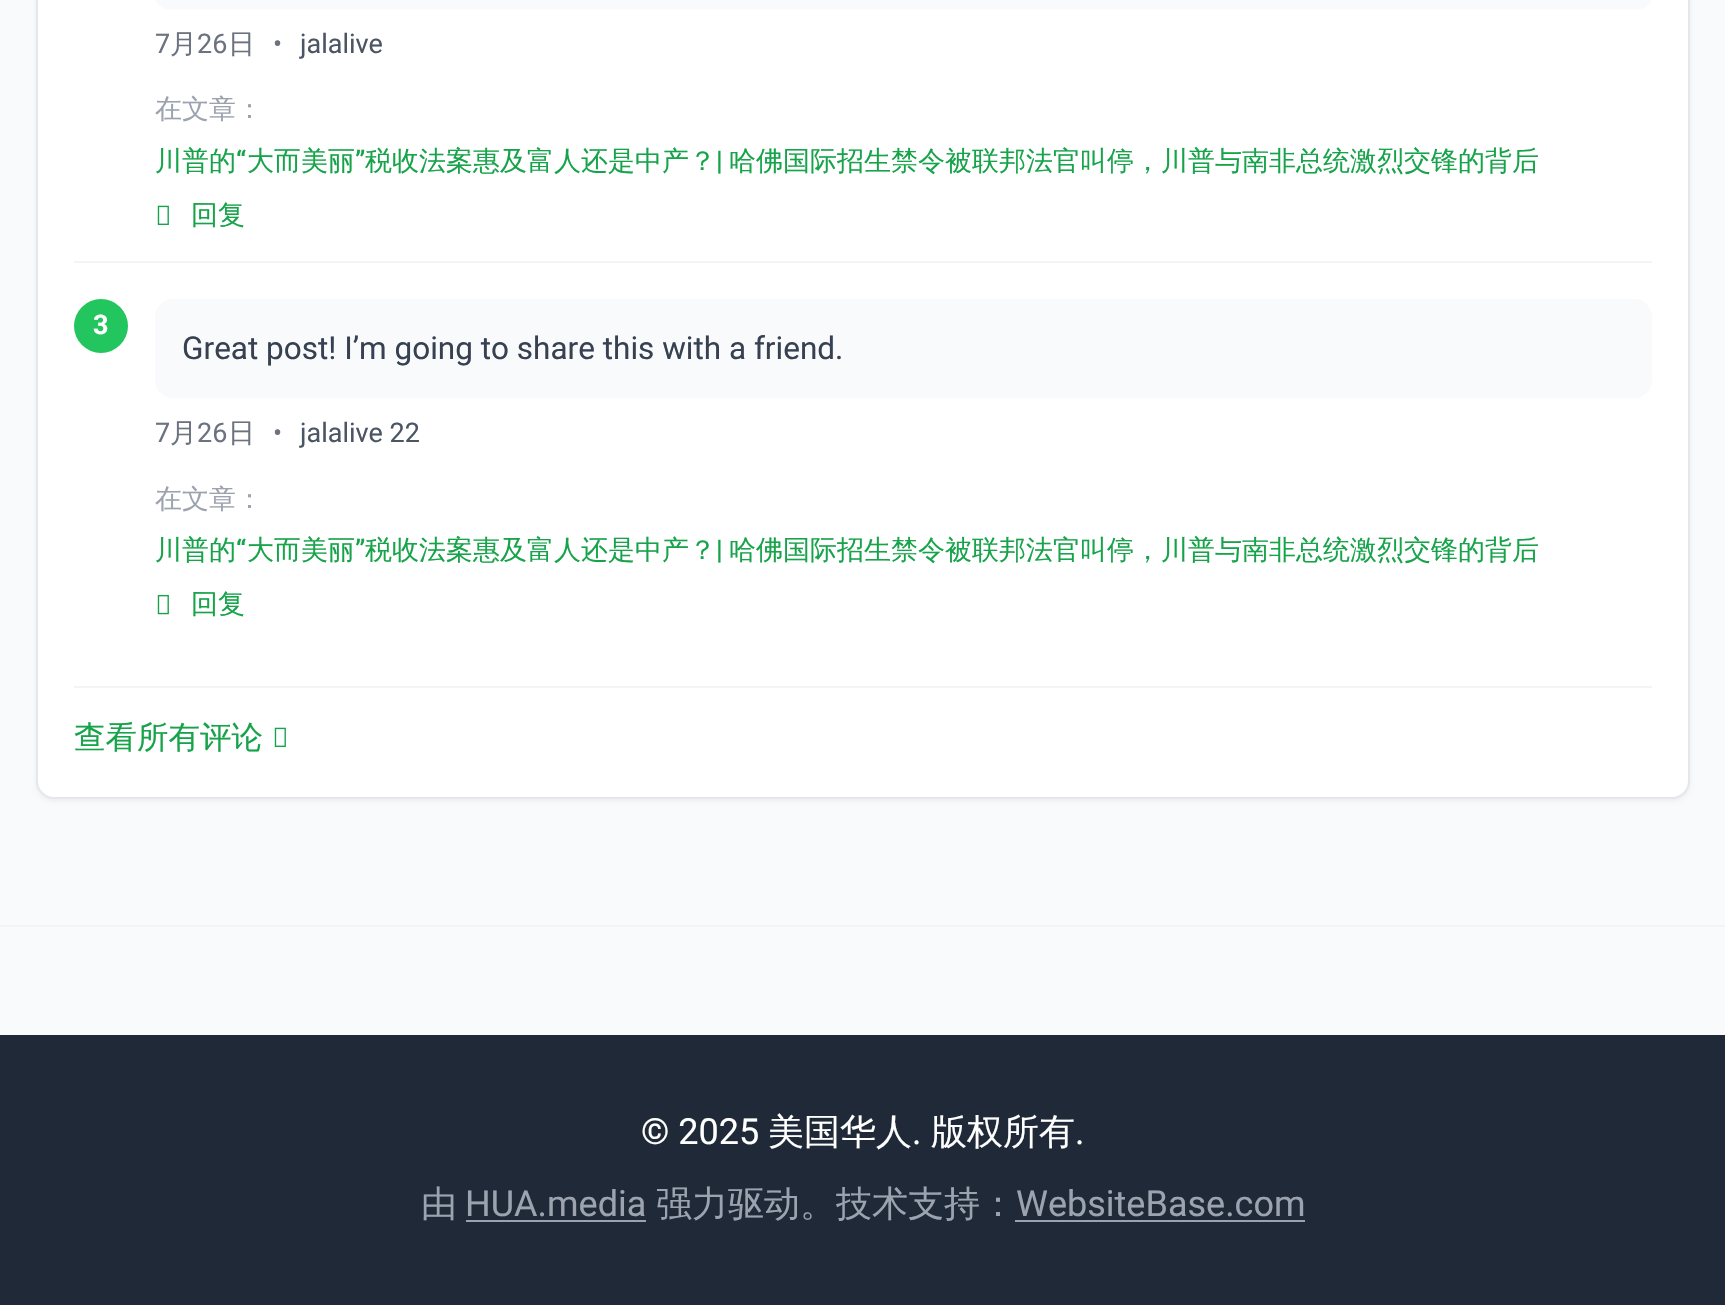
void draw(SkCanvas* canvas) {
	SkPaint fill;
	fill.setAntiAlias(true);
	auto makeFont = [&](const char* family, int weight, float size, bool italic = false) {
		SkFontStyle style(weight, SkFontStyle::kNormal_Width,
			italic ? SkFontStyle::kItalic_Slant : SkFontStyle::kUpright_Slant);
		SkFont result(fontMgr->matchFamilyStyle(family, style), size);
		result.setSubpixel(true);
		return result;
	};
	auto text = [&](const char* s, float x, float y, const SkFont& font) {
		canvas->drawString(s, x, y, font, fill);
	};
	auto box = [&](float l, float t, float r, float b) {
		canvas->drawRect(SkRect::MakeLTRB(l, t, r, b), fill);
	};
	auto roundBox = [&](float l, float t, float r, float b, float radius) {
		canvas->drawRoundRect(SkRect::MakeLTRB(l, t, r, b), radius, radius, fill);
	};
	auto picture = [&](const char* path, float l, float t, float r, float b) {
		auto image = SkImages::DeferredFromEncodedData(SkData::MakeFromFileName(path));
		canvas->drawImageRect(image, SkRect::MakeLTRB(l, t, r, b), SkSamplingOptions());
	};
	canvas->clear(0xFFF9FAFB);
	fill.setColor(0x0D000000);
	fill.setMaskFilter(SkMaskFilter::MakeBlur(kNormal_SkBlurStyle, 2));
	canvas->drawRoundRect(SkRect::MakeLTRB(36, -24, 1690, 801), 18, 18, fill);
	fill.setMaskFilter(nullptr);
	fill.setColor(0xFFFFFFFF);
	canvas->drawRoundRect(SkRect::MakeLTRB(37, -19, 1689, 798), 17, 17, fill);
	fill.setStyle(SkPaint::kStroke_Style);
	fill.setStrokeWidth(2);
	fill.setColor(0xFFE5E7EB);
	canvas->drawRoundRect(SkRect::MakeLTRB(37, -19, 1689, 798), 17, 17, fill);
	fill.setStyle(SkPaint::kFill_Style);
	fill.setColor(0xFFF3F4F6);
	box(74, 261, 1652, 263);
	fill.setColor(0xFFF9FAFB);
	roundBox(155, -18, 1652, 9, 18);
	picture("image0.png", 157, 205, 169, 225);
	fill.setColor(0xFF22C55E);
	canvas->drawCircle(101, 326, 27, fill);
	fill.setColor(0xFFF9FAFB);
	roundBox(155, 299, 1652, 398, 18);
	picture("image1.png", 157, 594, 169, 615);
	fill.setColor(0xFFF3F4F6);
	box(74, 686, 1652, 688);
	picture("image0.png", 274, 727, 286, 747);
	box(0, 925, 1725, 927);
	fill.setColor(0xFF1F2937);
	box(0, 1035, 1725, 1305);
	fill.setColor(0xFF9CA3AF);
	box(466, 1220, 646, 1222);
	box(1015, 1220, 1305, 1222);
	auto font1 = makeFont("Roboto", 400, 27);
	fill.setColor(0xFF6B7280);
	text("7", 155, 53, font1);
	auto font2 = makeFont("WenQuanYi Zen Hei", 500, 27);
	text("月", 170, 53, font2);
	text("26", 197, 53, font1);
	text("日", 228, 53, font2);
	text("•", 273, 53, font1);
	fill.setColor(0xFF4B5563);
	text("jalalive", 300, 53, font1);
	fill.setColor(0xFF9CA3AF);
	text("在文章：", 155, 118, font2);
	fill.setColor(0xFF16A34A);
	text("川普的", 155, 170, font2);
	auto font3 = makeFont("Roboto", 500, 27);
	text("“", 236, 170, font3);
	text("大而美丽", 247, 170, font2);
	text("”", 355, 170, font3);
	text("税收法案惠及富人还是中产？", 365, 170, font2);
	text("|", 716, 170, font3);
	text("哈佛国际招生禁令被联邦法官叫停，川普与南非总统激烈交锋的背后", 729, 170, font2);
	text("回复", 191, 224, font2);
	auto font4 = makeFont("Roboto", 700, 27);
	fill.setColor(0xFFFFFFFF);
	text("3", 93, 334, font4);
	auto font5 = makeFont("Roboto", 400, 31.5f);
	fill.setColor(0xFF374151);
	text("Great post! I’m going to share this with a friend.", 182, 359, font5);
	fill.setColor(0xFF6B7280);
	text("7", 155, 442, font1);
	text("月", 170, 442, font2);
	text("26", 197, 442, font1);
	text("日", 228, 442, font2);
	text("•", 273, 442, font1);
	fill.setColor(0xFF4B5563);
	text("jalalive 22", 300, 442, font1);
	fill.setColor(0xFF9CA3AF);
	text("在文章：", 155, 508, font2);
	fill.setColor(0xFF16A34A);
	text("川普的", 155, 559, font2);
	text("“", 236, 559, font3);
	text("大而美丽", 247, 559, font2);
	text("”", 355, 559, font3);
	text("税收法案惠及富人还是中产？", 365, 559, font2);
	text("|", 716, 559, font3);
	text("哈佛国际招生禁令被联邦法官叫停，川普与南非总统激烈交锋的背后", 729, 559, font2);
	text("回复", 191, 613, font2);
	auto font6 = makeFont("WenQuanYi Zen Hei", 500, 31.5f);
	text("查看所有评论", 74, 748, font6);
	auto font7 = makeFont("Roboto", 400, 36);
	fill.setColor(0xFFFFFFFF);
	text("© 2025", 641, 1144, font7);
	auto font8 = makeFont("WenQuanYi Zen Hei", 500, 36);
	text("美国华人", 768, 1144, font8);
	text(".", 912, 1144, font7);
	text("版权所有", 931, 1144, font8);
	text(".", 1075, 1144, font7);
	fill.setColor(0xFF9CA3AF);
	text("由", 421, 1216, font8);
	text("HUA.media", 465, 1216, font7);
	text("强力驱动。技术支持：", 656, 1216, font8);
	text("WebsiteBase.com", 1016, 1216, font7);
}
